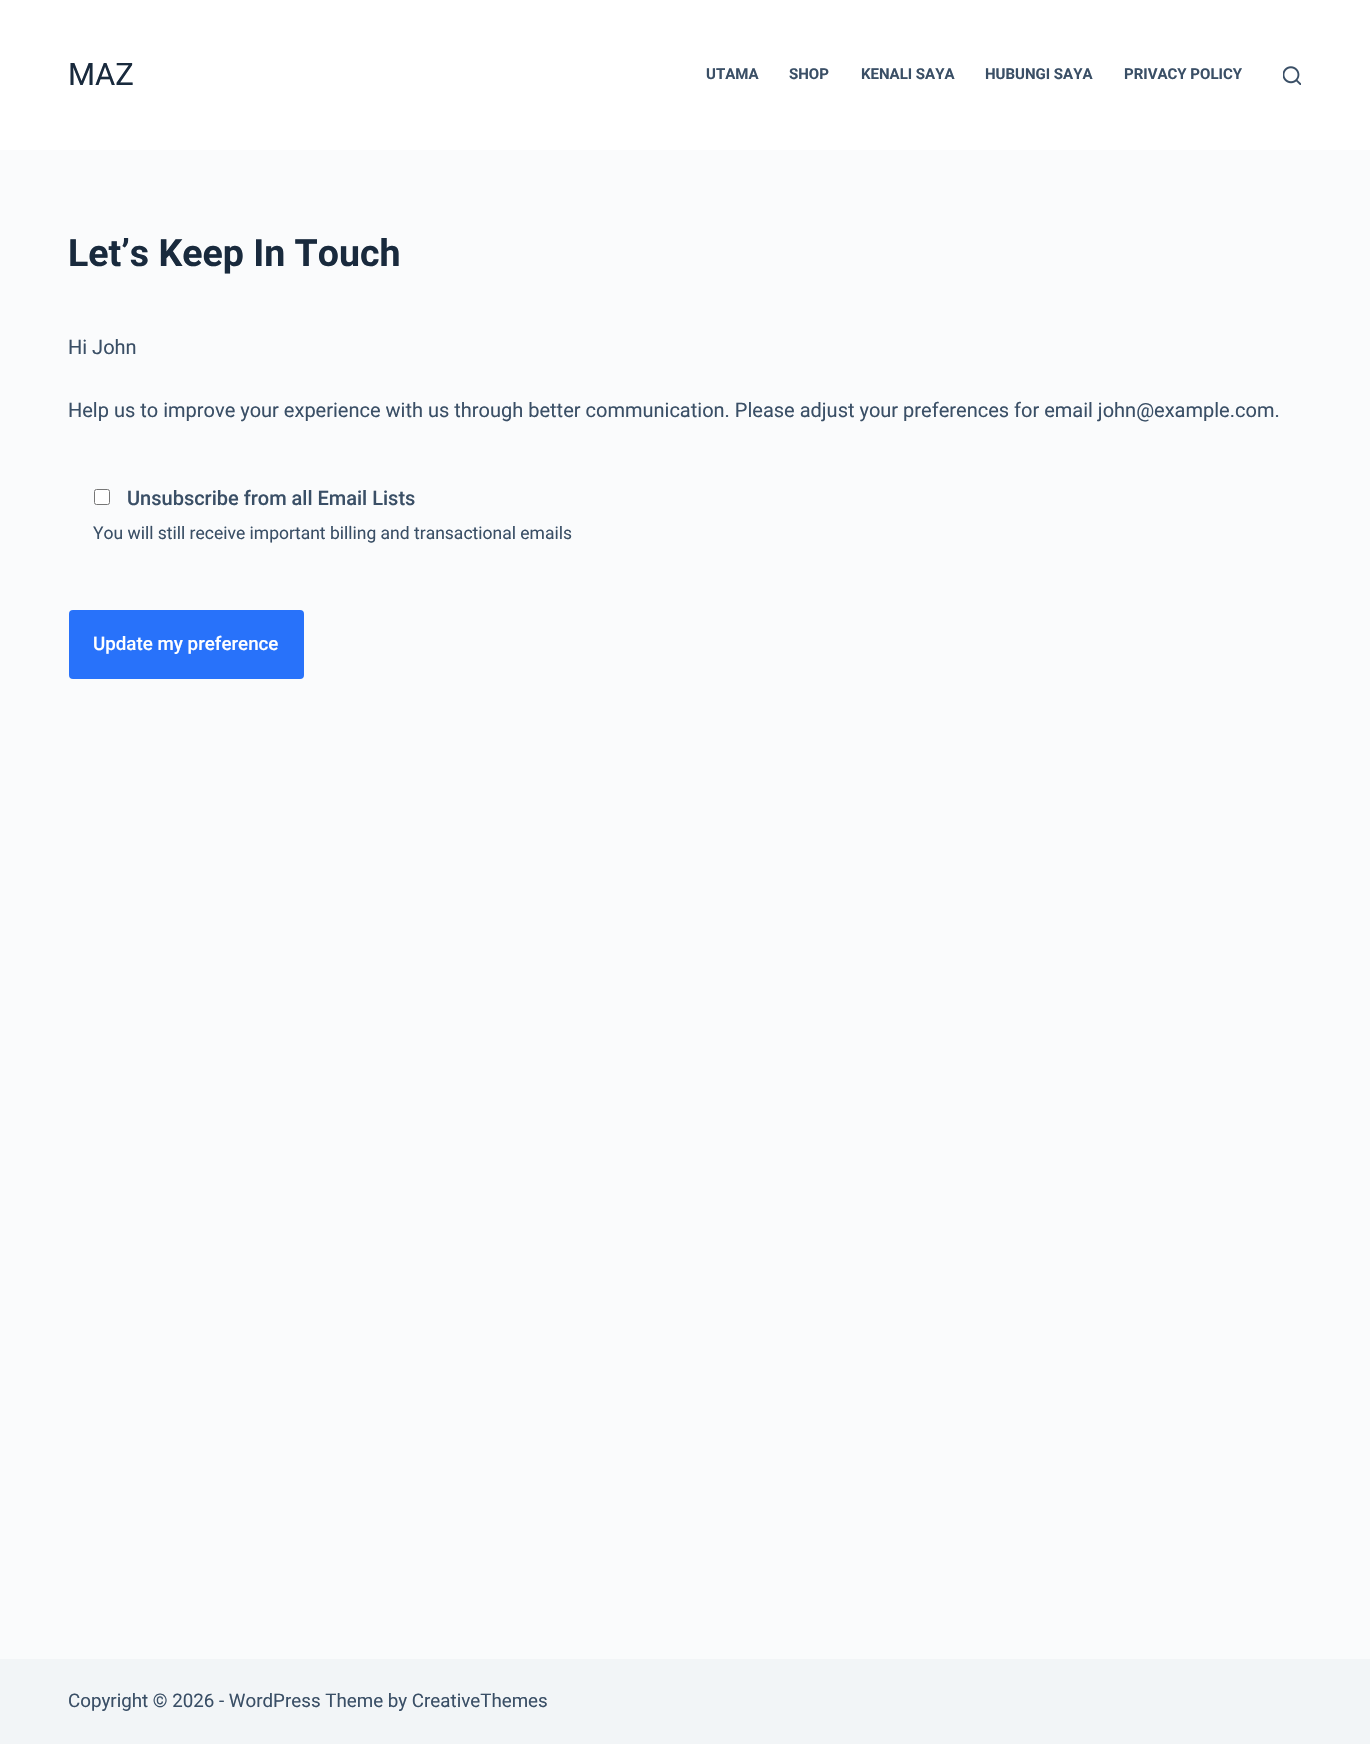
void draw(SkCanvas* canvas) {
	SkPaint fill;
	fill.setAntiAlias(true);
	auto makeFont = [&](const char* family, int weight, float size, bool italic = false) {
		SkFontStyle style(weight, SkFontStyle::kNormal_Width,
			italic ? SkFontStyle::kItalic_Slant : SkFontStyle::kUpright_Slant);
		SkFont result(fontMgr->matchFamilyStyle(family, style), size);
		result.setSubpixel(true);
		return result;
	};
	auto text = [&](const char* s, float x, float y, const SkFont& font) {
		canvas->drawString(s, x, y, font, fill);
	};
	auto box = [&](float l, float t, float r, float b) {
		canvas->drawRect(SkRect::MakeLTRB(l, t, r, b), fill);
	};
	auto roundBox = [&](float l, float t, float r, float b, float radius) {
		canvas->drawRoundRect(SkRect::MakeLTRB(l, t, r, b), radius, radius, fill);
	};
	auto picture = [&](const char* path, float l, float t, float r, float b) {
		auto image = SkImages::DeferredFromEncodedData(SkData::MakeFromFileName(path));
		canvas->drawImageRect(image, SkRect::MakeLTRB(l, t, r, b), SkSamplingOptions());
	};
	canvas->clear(0xFFFAFBFC);
	fill.setColor(0xFFFFFFFF);
	box(0, 0, 1370, 150);
	picture("image0.png", 1283, 66, 1301, 85);
	canvas->drawRoundRect(SkRect::MakeLTRB(94.5f, 489.5f, 109.5f, 504.5f), 2, 2, fill);
	fill.setStyle(SkPaint::kStroke_Style);
	fill.setStrokeWidth(1);
	fill.setColor(0xFF767676);
	canvas->drawRoundRect(SkRect::MakeLTRB(94.5f, 489.5f, 109.5f, 504.5f), 2, 2, fill);
	fill.setStyle(SkPaint::kFill_Style);
	fill.setColor(0xFF2872FA);
	roundBox(69, 610, 304, 679, 4);
	fill.setColor(0xFFF2F5F7);
	box(0, 1659, 1370, 1744);
	auto font1 = makeFont("Roboto", 400, 31);
	fill.setColor(0xFF192A3D);
	text("MAZ", 68, 85, font1);
	auto font2 = makeFont("Roboto", 700, 15);
	fill.setColor(0xFF3A4F66);
	text("UTAMA", 706, 79, font2);
	text("SHOP", 789, 79, font2);
	text("KENALI SAYA", 861, 79, font2);
	text("HUBUNGI SAYA", 985, 79, font2);
	text("PRIVACY POLICY", 1124, 79, font2);
	auto font3 = makeFont("Roboto", 700, 37.5f);
	fill.setColor(0xFF192A3D);
	text("Let’s Keep In Touch", 68, 266, font3);
	auto font4 = makeFont("Roboto", 400, 20);
	fill.setColor(0xFF3A4F66);
	text("Hi John", 68, 354, font4);
	text("Help us to improve your experience with us through better communication. Please adjust your preferences for email john@example.com.", 68, 417, font4);
	auto font5 = makeFont("Roboto", 500, 20);
	text("Unsubscribe from all Email Lists", 127, 505, font5);
	auto font6 = makeFont("Roboto", 400, 17.5f);
	text("You will still receive important billing and transactional emails", 93, 539, font6);
	auto font7 = makeFont("Roboto", 500, 18.75f);
	fill.setColor(0xFFFFFFFF);
	text("Update my preference", 93, 650, font7);
	auto font8 = makeFont("Roboto", 400, 18.75f);
	fill.setColor(0xFF3A4F66);
	text("Copyright © 2026 - WordPress Theme by CreativeThemes", 68, 1707, font8);
}
